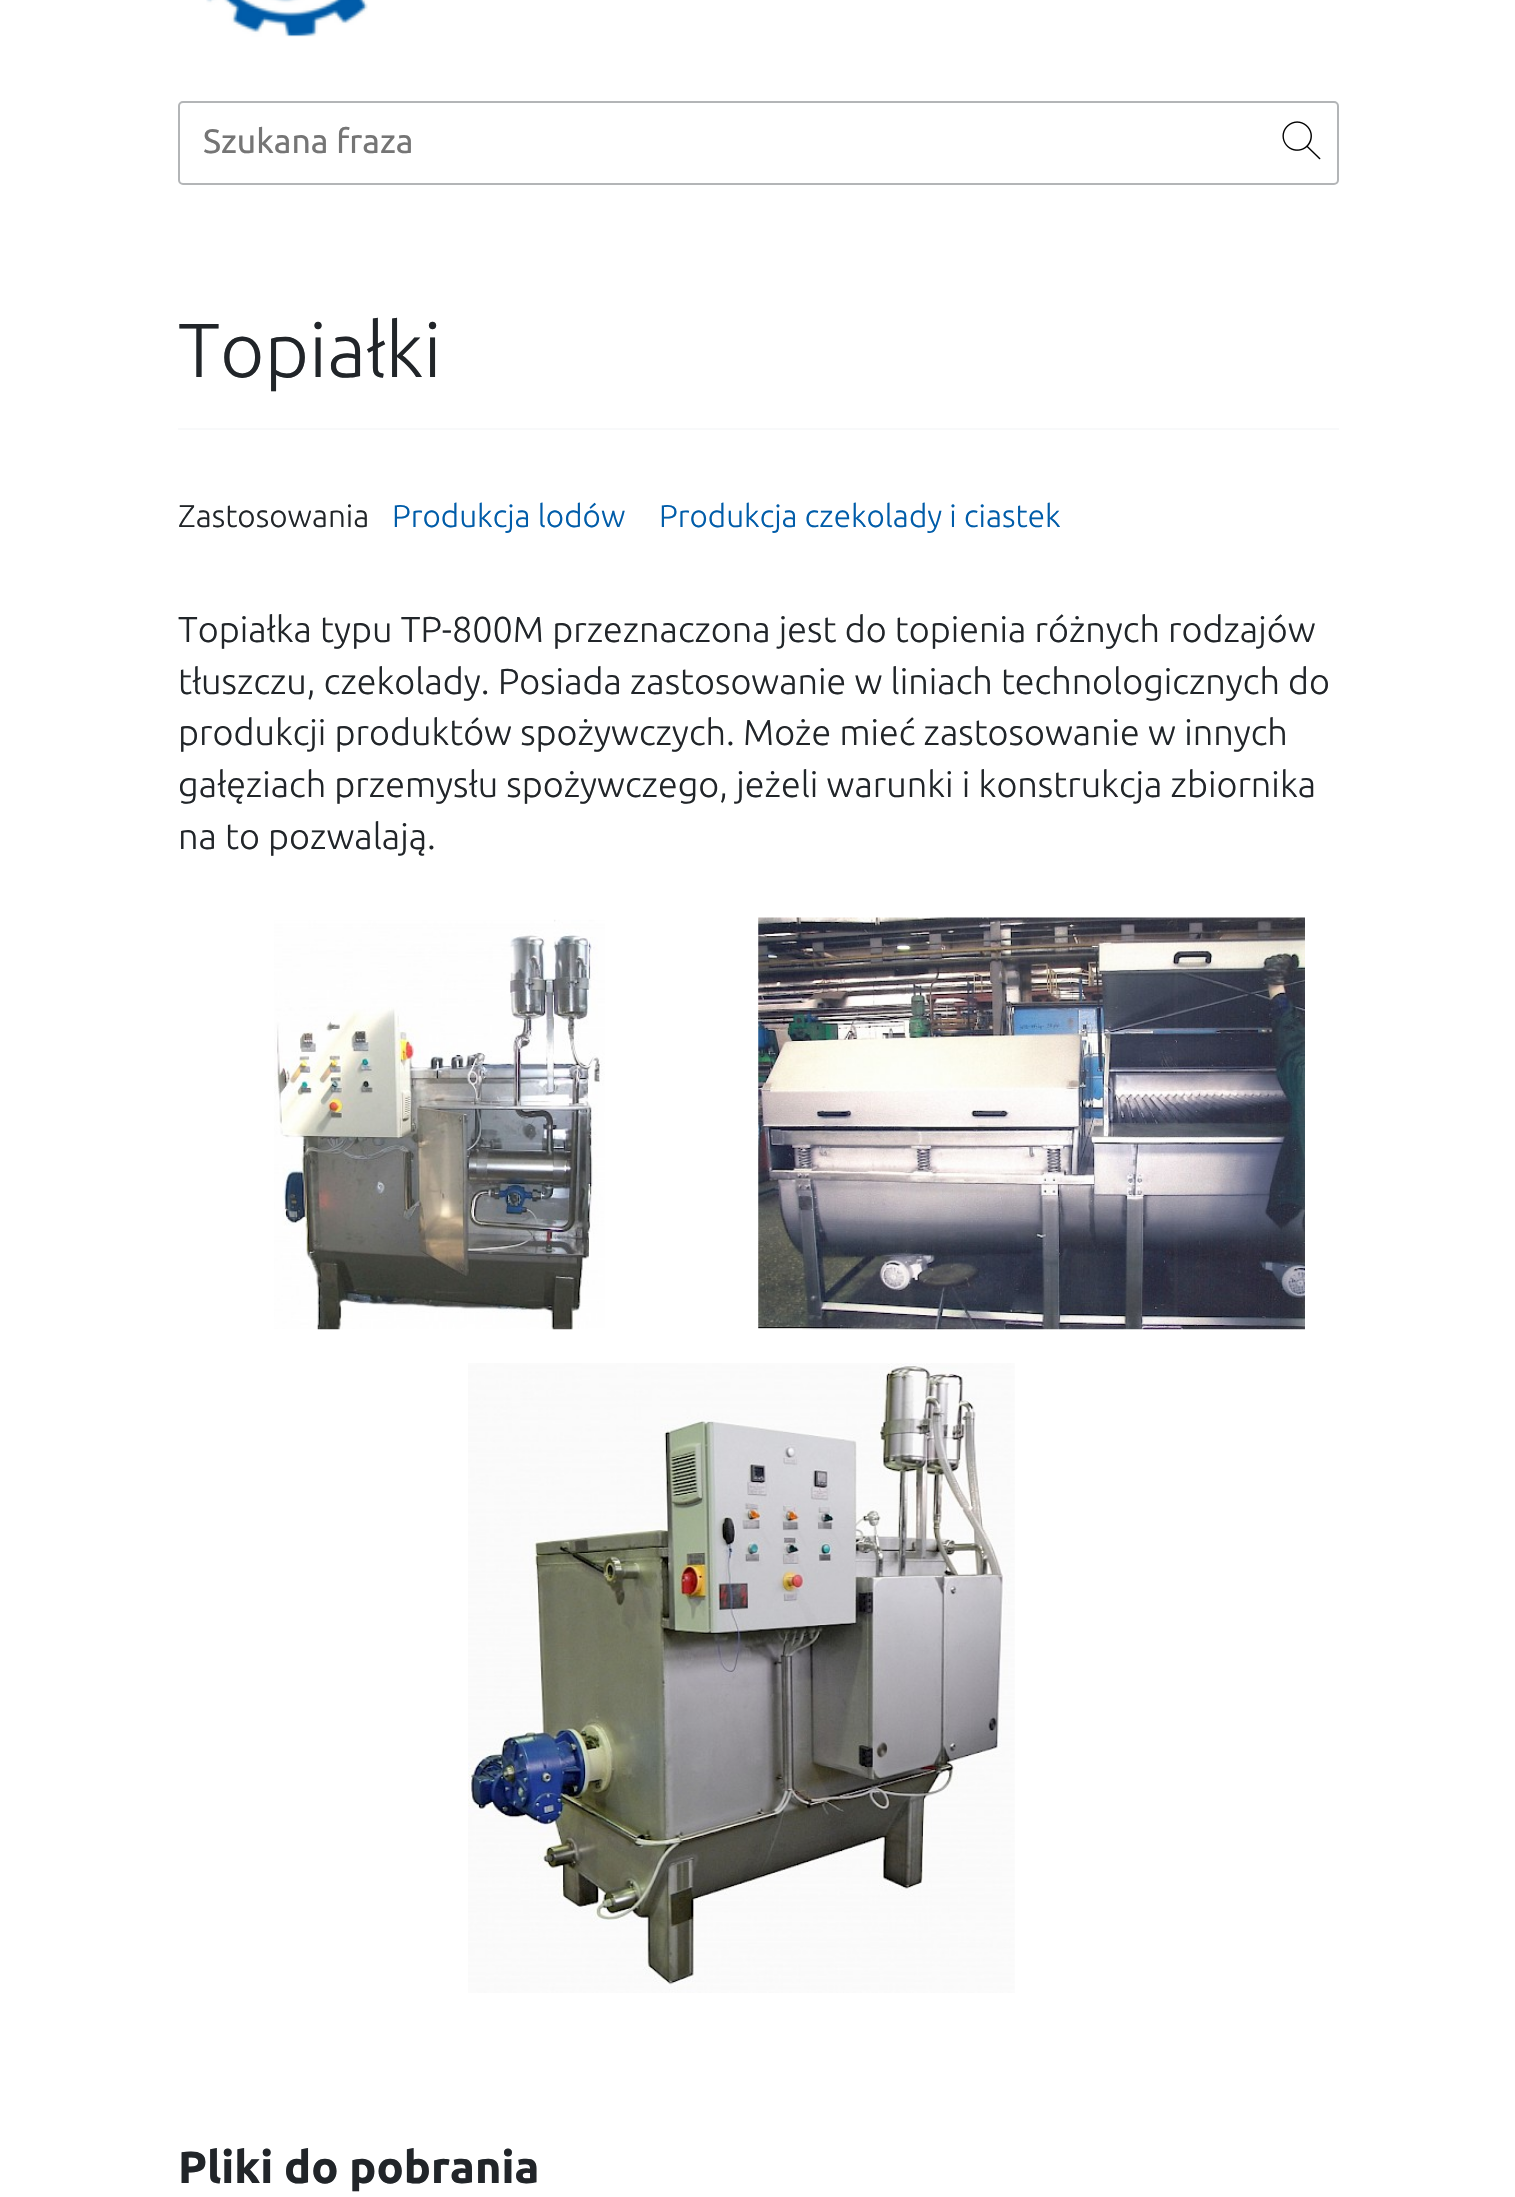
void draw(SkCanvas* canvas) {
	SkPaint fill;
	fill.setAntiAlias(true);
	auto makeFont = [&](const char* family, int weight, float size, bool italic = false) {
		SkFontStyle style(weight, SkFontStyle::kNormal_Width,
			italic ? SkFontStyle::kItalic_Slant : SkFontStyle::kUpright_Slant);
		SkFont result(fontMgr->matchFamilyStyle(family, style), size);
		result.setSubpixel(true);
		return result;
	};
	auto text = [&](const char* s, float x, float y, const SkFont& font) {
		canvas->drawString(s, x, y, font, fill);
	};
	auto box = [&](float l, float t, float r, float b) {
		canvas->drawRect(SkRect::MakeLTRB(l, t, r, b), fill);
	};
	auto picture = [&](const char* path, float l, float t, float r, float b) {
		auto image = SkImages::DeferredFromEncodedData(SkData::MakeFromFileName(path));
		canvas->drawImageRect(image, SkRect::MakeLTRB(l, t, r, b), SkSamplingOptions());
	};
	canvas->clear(0xFFFFFFFF);
	picture("image0.png", 206, 0, 368, 37);
	fill.setStyle(SkPaint::kStroke_Style);
	fill.setStrokeWidth(2);
	fill.setColor(0xFFB3B5B7);
	canvas->drawRoundRect(SkRect::MakeLTRB(179, 102, 1338, 184), 4, 4, fill);
	picture("image1.png", 1282, 121, 1321, 160);
	fill.setStyle(SkPaint::kFill_Style);
	fill.setColor(0xFFF8F9FA);
	box(178, 428, 1339, 430);
	picture("image2.png", 274, 919, 605, 1330);
	picture("image3.png", 758, 917, 1305, 1330);
	picture("image4.png", 468, 1363, 1015, 1993);
	auto font1 = makeFont("Ubuntu", 400, 33.75f);
	fill.setColor(0xFF757575);
	text("Szukana fraza", 203, 153, font1);
	auto font2 = makeFont("Ubuntu", 300, 76.5f);
	fill.setColor(0xFF212529);
	text("Topiałki", 178, 377, font2);
	auto font3 = makeFont("Ubuntu", 300, 31.5f);
	text("Zastosowania", 178, 527, font3);
	fill.setColor(0xFF005CA9);
	text("Produkcja lodów", 392, 527, font3);
	text("Produkcja czekolady i ciastek", 659, 527, font3);
	auto font4 = makeFont("Ubuntu", 300, 36);
	fill.setColor(0xFF212529);
	text("Topiałka typu TP-800M przeznaczona jest do topienia różnych rodzajów", 178, 642, font4);
	text("tłuszczu, czekolady. Posiada zastosowanie w liniach technologicznych do", 178, 694, font4);
	text("produkcji produktów spożywczych. Może mieć zastosowanie w innych", 178, 745, font4);
	text("gałęziach przemysłu spożywczego, jeżeli warunki i konstrukcja zbiornika", 178, 797, font4);
	text("na to pozwalają.", 178, 849, font4);
	auto font5 = makeFont("Ubuntu", 700, 45);
	text("Pliki do pobrania", 178, 2183, font5);
}
